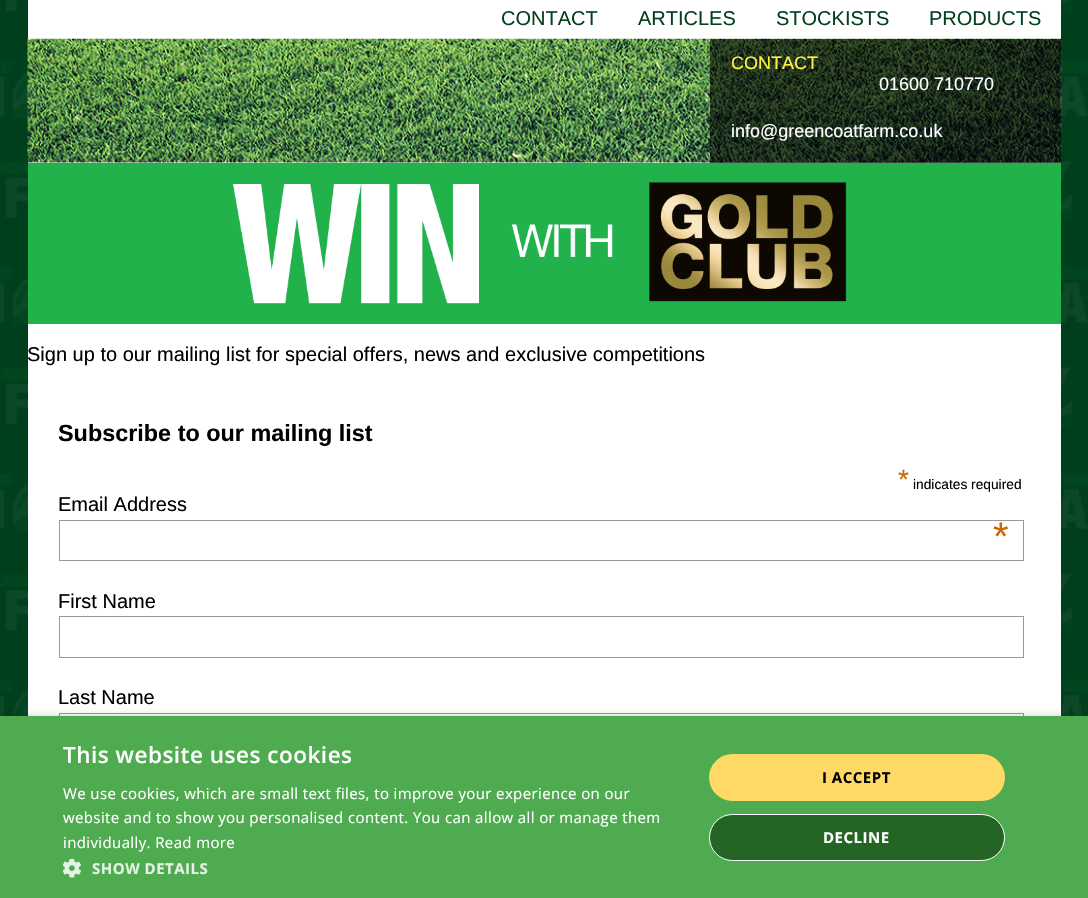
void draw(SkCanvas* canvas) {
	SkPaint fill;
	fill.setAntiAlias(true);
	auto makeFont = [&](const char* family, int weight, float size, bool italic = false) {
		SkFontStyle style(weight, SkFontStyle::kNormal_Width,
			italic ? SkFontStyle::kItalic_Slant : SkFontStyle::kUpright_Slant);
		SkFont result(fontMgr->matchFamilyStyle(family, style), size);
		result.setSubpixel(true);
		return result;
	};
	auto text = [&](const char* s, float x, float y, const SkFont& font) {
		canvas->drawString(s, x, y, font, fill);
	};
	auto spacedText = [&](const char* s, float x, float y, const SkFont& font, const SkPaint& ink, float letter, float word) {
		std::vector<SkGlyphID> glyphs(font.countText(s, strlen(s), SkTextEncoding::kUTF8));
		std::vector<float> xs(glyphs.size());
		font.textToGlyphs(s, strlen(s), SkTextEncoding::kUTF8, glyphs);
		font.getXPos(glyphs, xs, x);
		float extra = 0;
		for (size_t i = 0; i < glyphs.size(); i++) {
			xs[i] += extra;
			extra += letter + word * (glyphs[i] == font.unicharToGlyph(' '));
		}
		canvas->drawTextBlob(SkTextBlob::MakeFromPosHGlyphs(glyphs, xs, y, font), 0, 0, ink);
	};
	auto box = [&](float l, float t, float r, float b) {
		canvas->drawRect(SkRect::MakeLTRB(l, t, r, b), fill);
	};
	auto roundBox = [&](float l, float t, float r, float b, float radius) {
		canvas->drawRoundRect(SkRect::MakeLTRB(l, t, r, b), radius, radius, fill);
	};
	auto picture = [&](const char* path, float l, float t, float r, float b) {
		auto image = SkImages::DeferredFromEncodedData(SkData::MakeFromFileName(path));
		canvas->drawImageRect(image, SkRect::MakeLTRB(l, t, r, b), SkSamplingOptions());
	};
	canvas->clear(0xFFFFFFFF);
	picture("image0.png", 0, 0, 1088, 716);
	fill.setColor(0xFFFFFFFF);
	box(28, 0, 1061, 716);
	picture("image1.png", 27, 38, 1062, 163);
	fill.setColor(0x99000000);
	box(710, 39, 1061, 163);
	fill.setColor(0xFF21B24B);
	box(28, 163, 1061, 324);
	picture("image2.png", 233, 182, 847, 304);
	fill.setStyle(SkPaint::kStroke_Style);
	fill.setStrokeWidth(1);
	fill.setColor(0xFF999999);
	canvas->drawRect(SkRect::MakeLTRB(59.5f, 520.5f, 1023.5f, 560.5f), fill);
	canvas->drawRect(SkRect::MakeLTRB(59.5f, 616.5f, 1023.5f, 657.5f), fill);
	canvas->drawRect(SkRect::MakeLTRB(59.5f, 713.5f, 1023.5f, 753.5f), fill);
	fill.setStyle(SkPaint::kFill_Style);
	fill.setColor(0x59000000);
	fill.setMaskFilter(SkMaskFilter::MakeBlur(kNormal_SkBlurStyle, 5));
	canvas->drawRect(SkRect::MakeLTRB(1, 719, 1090, 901), fill);
	fill.setMaskFilter(nullptr);
	fill.setColor(0xFF4EAB4F);
	box(0, 716, 1088, 898);
	picture("image3.png", 63, 859, 81, 878);
	fill.setColor(0xFFFFD966);
	roundBox(709, 754, 1005, 801, 23.5f);
	fill.setColor(0xFF246424);
	canvas->drawRoundRect(SkRect::MakeLTRB(709.5f, 814.5f, 1004.5f, 860.5f), 23, 23, fill);
	fill.setStyle(SkPaint::kStroke_Style);
	fill.setColor(0xFFFFFFFF);
	canvas->drawRoundRect(SkRect::MakeLTRB(709.5f, 814.5f, 1004.5f, 860.5f), 23, 23, fill);
	auto font1 = makeFont("Liberation Sans", 400, 20);
	fill.setStyle(SkPaint::kFill_Style);
	fill.setColor(0xFF043F1E);
	text("CONTACT", 501, 25, font1);
	text("ARTICLES", 638, 25, font1);
	text("STOCKISTS", 776, 25, font1);
	text("PRODUCTS", 929, 25, font1);
	auto font2 = makeFont("Liberation Sans", 400, 18);
	fill.setColor(0xFFFFF042);
	text("CONTACT", 731, 69, font2);
	fill.setColor(0xFFFFFFFF);
	text("01600 710770", 879, 90, font2);
	text("info@greencoatfarm.co.uk", 731, 137, font2);
	fill.setColor(0xFF000000);
	text("Sign up to our mailing list for special offers, news and exclusive competitions", 27, 361, font1);
	auto font3 = makeFont("Liberation Sans", 700, 23.4f);
	text("Subscribe to our mailing list", 58, 441, font3);
	auto font4 = makeFont("Liberation Sans", 400, 28);
	fill.setColor(0xFFCC6600);
	text("*", 898, 489, font4);
	auto font5 = makeFont("Liberation Sans", 400, 13.75f);
	fill.setColor(0xFF000000);
	text("indicates required", 913, 489, font5);
	text("Email Address", 58, 511, font1);
	auto font6 = makeFont("Liberation Sans", 400, 40);
	fill.setColor(0xFFCC6600);
	text("*", 993, 550, font6);
	fill.setColor(0xFF000000);
	text("First Name", 58, 608, font1);
	text("Last Name", 58, 704, font1);
	auto font7 = makeFont("Open Sans", 600, 22.5f);
	fill.setColor(0xFFFFFFFF);
	spacedText("This website uses cookies", 63, 763, font7, fill, 0.5f, 0);
	auto font8 = makeFont("Open Sans", 400, 15);
	spacedText("We use cookies, which are small text files, to improve your experience on our", 63, 799, font8, fill, 0.38f, 0);
	spacedText("website and to show you personalised content. You can allow all or manage them", 63, 823, font8, fill, 0.38f, 0);
	spacedText("individually. Read more", 63, 848, font8, fill, 0.38f, 0);
	auto font9 = makeFont("Open Sans", 700, 15);
	fill.setColor(0xFFE4F2E5);
	spacedText("SHOW DETAILS", 92, 874, font9, fill, 0.5f, 0);
	fill.setColor(0xFF000000);
	spacedText("I ACCEPT", 822, 783, font9, fill, 0.5f, 0);
	fill.setColor(0xFFFFFFFF);
	spacedText("DECLINE", 823, 843, font9, fill, 0.5f, 0);
}
